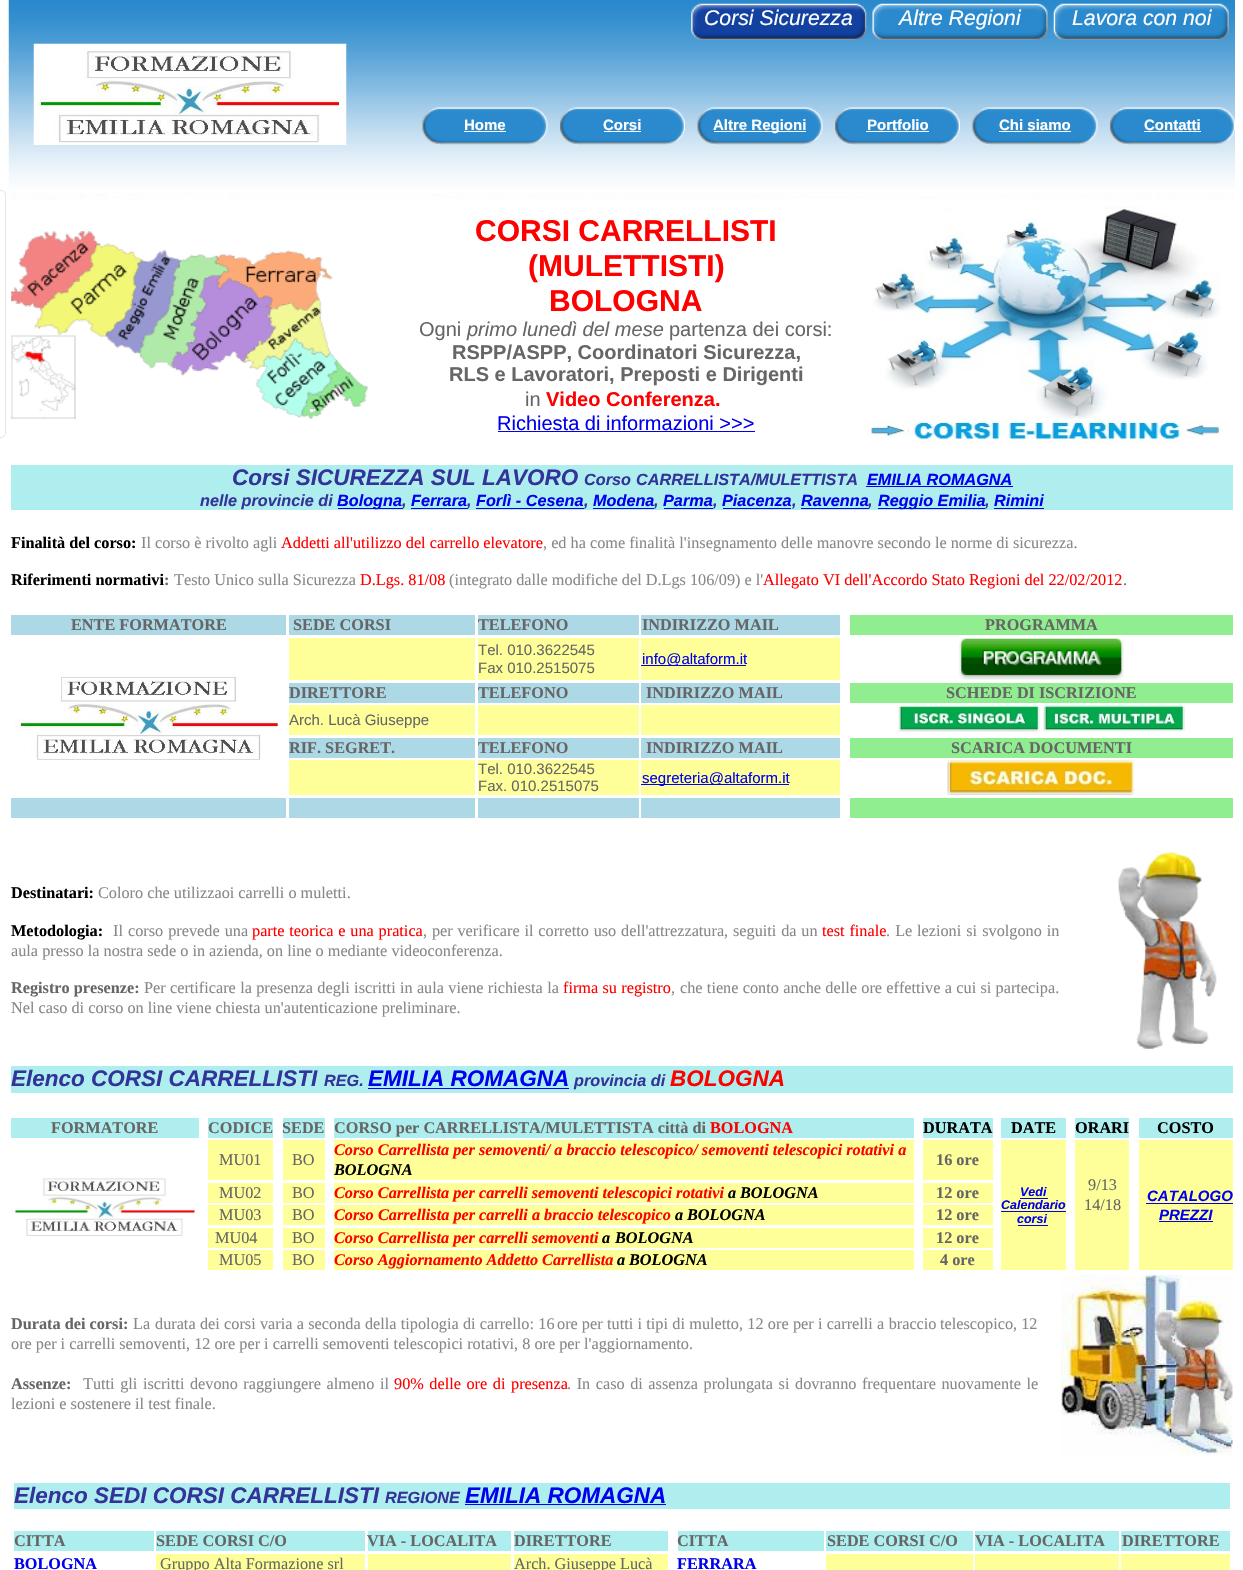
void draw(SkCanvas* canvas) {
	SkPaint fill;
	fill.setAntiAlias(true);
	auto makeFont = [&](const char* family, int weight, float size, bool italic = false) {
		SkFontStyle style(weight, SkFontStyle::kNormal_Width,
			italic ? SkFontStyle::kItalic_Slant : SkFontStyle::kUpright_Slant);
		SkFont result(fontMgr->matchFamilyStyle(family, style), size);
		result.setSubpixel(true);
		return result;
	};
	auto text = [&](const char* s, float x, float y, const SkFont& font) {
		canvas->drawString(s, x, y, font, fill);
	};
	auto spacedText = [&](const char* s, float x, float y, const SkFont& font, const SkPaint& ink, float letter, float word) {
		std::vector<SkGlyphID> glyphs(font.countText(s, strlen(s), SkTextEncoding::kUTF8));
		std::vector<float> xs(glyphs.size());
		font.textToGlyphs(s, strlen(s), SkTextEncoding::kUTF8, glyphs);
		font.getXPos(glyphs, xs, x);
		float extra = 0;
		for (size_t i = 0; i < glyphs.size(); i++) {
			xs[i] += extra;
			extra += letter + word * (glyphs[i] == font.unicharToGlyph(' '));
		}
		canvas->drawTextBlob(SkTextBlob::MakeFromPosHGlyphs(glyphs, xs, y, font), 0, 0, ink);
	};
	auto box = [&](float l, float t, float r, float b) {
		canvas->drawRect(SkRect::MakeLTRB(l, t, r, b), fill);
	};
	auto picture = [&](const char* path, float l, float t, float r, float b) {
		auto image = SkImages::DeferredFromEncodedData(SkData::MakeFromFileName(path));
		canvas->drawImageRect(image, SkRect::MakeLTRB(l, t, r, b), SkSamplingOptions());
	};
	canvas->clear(0xFFFFFFFF);
	picture("image0.png", 8, 0, 1235, 200);
	picture("image1.png", 691, 3, 867, 40);
	picture("image2.png", 872, 3, 1048, 40);
	picture("image3.png", 1053, 3, 1229, 40);
	picture("image4.png", 33, 43, 347, 145);
	picture("image5.png", 422, 107, 548, 145);
	fill.setColor(0xFFFFFFFF);
	box(464, 131, 506, 132);
	picture("image6.png", 560, 107, 685, 145);
	box(604, 131, 641, 132);
	picture("image5.png", 697, 107, 823, 145);
	box(714, 131, 806, 132);
	picture("image7.png", 835, 107, 960, 145);
	box(866, 131, 929, 132);
	picture("image8.png", 972, 107, 1098, 145);
	box(999, 131, 1071, 132);
	picture("image7.png", 1110, 107, 1235, 145);
	box(1144, 131, 1201, 132);
	fill.setStyle(SkPaint::kStroke_Style);
	fill.setStrokeWidth(1);
	fill.setColor(0xFFE5E5E5);
	canvas->drawRoundRect(SkRect::MakeLTRB(-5.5f, 190.5f, 5.5f, 437.5f), 4.5f, 4.5f, fill);
	picture("image9.png", 11, 231, 368, 419);
	fill.setStyle(SkPaint::kFill_Style);
	fill.setColor(0xFF0000EE);
	box(498, 431, 755, 432);
	picture("image10.png", 867, 206, 1221, 443);
	fill.setColor(0xFFAFEEEE);
	box(11, 465, 1233, 510);
	fill.setColor(0xFF0000EE);
	box(866, 486, 1013, 487);
	box(338, 508, 403, 509);
	box(411, 508, 468, 509);
	box(476, 508, 584, 509);
	box(593, 508, 654, 509);
	box(664, 508, 713, 509);
	box(723, 508, 791, 509);
	box(801, 508, 869, 509);
	box(878, 508, 985, 509);
	box(994, 508, 1044, 509);
	fill.setColor(0xFFADD8E6);
	box(11, 615, 286, 635);
	box(289, 615, 475, 635);
	box(478, 615, 639, 635);
	box(641, 615, 840, 635);
	fill.setColor(0xFF90EE90);
	box(850, 615, 1233, 635);
	fill.setColor(0xFFFFFF99);
	box(289, 638, 475, 680);
	box(478, 638, 639, 680);
	box(641, 638, 840, 680);
	fill.setColor(0xFF0000EE);
	box(641, 665, 746, 666);
	picture("image11.png", 959, 638, 1124, 680);
	picture("image12.png", 15, 676, 278, 760);
	fill.setColor(0xFFADD8E6);
	box(289, 683, 475, 703);
	box(478, 683, 639, 703);
	box(641, 683, 840, 703);
	fill.setColor(0xFF90EE90);
	box(850, 683, 1233, 703);
	fill.setColor(0xFFFFFF99);
	box(289, 705, 475, 735);
	box(478, 705, 639, 735);
	box(641, 705, 840, 735);
	picture("image13.png", 898, 705, 1040, 732);
	picture("image14.png", 1043, 705, 1185, 732);
	fill.setColor(0xFFADD8E6);
	box(289, 738, 475, 758);
	box(478, 738, 639, 758);
	box(641, 738, 840, 758);
	fill.setColor(0xFF90EE90);
	box(850, 738, 1233, 758);
	fill.setColor(0xFFFFFF99);
	box(289, 760, 475, 795);
	box(478, 760, 639, 795);
	box(641, 760, 840, 795);
	fill.setColor(0xFF0000EE);
	box(641, 784, 789, 785);
	picture("image15.png", 947, 760, 1135, 795);
	fill.setColor(0xFFADD8E6);
	box(11, 798, 286, 818);
	box(289, 798, 475, 818);
	box(478, 798, 639, 818);
	box(641, 798, 840, 818);
	fill.setColor(0xFF90EE90);
	box(850, 798, 1233, 818);
	picture("image16.png", 1117, 852, 1217, 1049);
	fill.setColor(0xFFAFEEEE);
	box(11, 1066, 1233, 1093);
	fill.setColor(0xFF0000EE);
	box(368, 1088, 569, 1089);
	fill.setColor(0xFFAFEEEE);
	box(11, 1118, 199, 1138);
	box(208, 1118, 273, 1138);
	box(283, 1118, 325, 1138);
	box(334, 1118, 914, 1138);
	box(923, 1118, 993, 1138);
	box(1001, 1118, 1066, 1138);
	box(1075, 1118, 1129, 1138);
	box(1139, 1118, 1233, 1138);
	fill.setColor(0xFFFFFF99);
	box(208, 1140, 273, 1180);
	box(283, 1140, 325, 1180);
	box(334, 1140, 914, 1180);
	box(923, 1140, 993, 1180);
	picture("image17.png", 11, 1178, 195, 1236);
	box(1001, 1140, 1066, 1270);
	fill.setColor(0xFF0000EE);
	box(1020, 1198, 1048, 1199);
	box(1001, 1211, 1066, 1212);
	box(1018, 1225, 1048, 1226);
	fill.setColor(0xFFFFFF99);
	box(1075, 1140, 1129, 1270);
	box(1139, 1140, 1233, 1270);
	fill.setColor(0xFF0000EE);
	box(1146, 1203, 1233, 1204);
	box(1159, 1221, 1213, 1222);
	fill.setColor(0xFFFFFF99);
	box(208, 1183, 273, 1203);
	box(283, 1183, 325, 1203);
	box(334, 1183, 914, 1203);
	box(923, 1183, 993, 1203);
	box(208, 1205, 273, 1225);
	box(283, 1205, 325, 1225);
	box(334, 1205, 914, 1225);
	box(923, 1205, 993, 1225);
	box(208, 1228, 273, 1248);
	box(283, 1228, 325, 1248);
	box(334, 1228, 914, 1248);
	box(923, 1228, 993, 1248);
	box(208, 1250, 273, 1270);
	box(283, 1250, 325, 1270);
	box(334, 1250, 914, 1270);
	box(923, 1250, 993, 1270);
	picture("image18.png", 1061, 1275, 1233, 1456);
	fill.setColor(0xFFAFEEEE);
	box(14, 1483, 1230, 1509);
	fill.setColor(0xFF0000EE);
	box(465, 1504, 666, 1505);
	fill.setColor(0xFFAFEEEE);
	box(14, 1531, 154, 1551);
	box(156, 1531, 365, 1551);
	box(368, 1531, 511, 1551);
	box(514, 1531, 668, 1551);
	box(678, 1531, 824, 1551);
	box(826, 1531, 973, 1551);
	box(975, 1531, 1119, 1551);
	box(1121, 1531, 1230, 1551);
	fill.setColor(0xFFFFFF99);
	box(156, 1554, 365, 1570);
	box(368, 1554, 511, 1570);
	box(514, 1554, 668, 1570);
	box(826, 1554, 973, 1570);
	box(975, 1554, 1119, 1570);
	box(1121, 1554, 1230, 1570);
	auto font1 = makeFont("Liberation Sans", 400, 21.25f, true);
	fill.setColor(0xFFFFFFFF);
	text("Corsi Sicurezza", 704, 25, font1);
	text("Altre Regioni", 899, 25, font1);
	text("Lavora con noi", 1072, 25, font1);
	auto font2 = makeFont("Liberation Sans", 700, 15);
	text("Home", 464, 130, font2);
	text("Corsi", 603, 130, font2);
	text("Altre Regioni", 713, 130, font2);
	text("Portfolio", 867, 130, font2);
	text("Chi siamo", 999, 130, font2);
	text("Contatti", 1144, 130, font2);
	auto font3 = makeFont("Liberation Sans", 700, 30);
	fill.setColor(0xFFFF0000);
	text("CORSI CARRELLISTI", 475, 241, font3);
	text("(MULETTISTI)", 528, 276, font3);
	text("BOLOGNA", 549, 311, font3);
	auto font4 = makeFont("Liberation Sans", 400, 20);
	fill.setColor(0xFF666666);
	text("Ogni", 419, 336, font4);
	auto font5 = makeFont("Liberation Sans", 400, 20, true);
	text("primo lunedì del mese", 467, 336, font5);
	text("partenza dei corsi:", 669, 336, font4);
	auto font6 = makeFont("Liberation Sans", 700, 20);
	text("RSPP/ASPP, Coordinatori Sicurezza,", 452, 359, font6);
	text("RLS e Lavoratori, Preposti e Dirigenti", 449, 381, font6);
	text("in", 525, 406, font4);
	fill.setColor(0xFFFF0000);
	text("Video Conferenza.", 546, 406, font6);
	fill.setColor(0xFF0000EE);
	text("Richiesta di informazioni >>>", 497, 430, font4);
	auto font7 = makeFont("Liberation Sans", 700, 22.5f, true);
	fill.setColor(0xFF333399);
	text("Corsi SICUREZZA SUL LAVORO", 232, 485, font7);
	auto font8 = makeFont("Liberation Sans", 700, 16.25f, true);
	text("Corso", 584, 485, font8);
	text("CARRELLISTA/MULETTISTA", 636, 485, font8);
	fill.setColor(0xFF0000EE);
	text("EMILIA ROMAGNA", 867, 485, font8);
	fill.setColor(0xFF333399);
	text("nelle provincie di", 200, 506, font8);
	fill.setColor(0xFF0000EE);
	text("Bologna", 337, 506, font8);
	fill.setColor(0xFF333399);
	text(",", 402, 506, font8);
	fill.setColor(0xFF0000EE);
	text("Ferrara", 411, 506, font8);
	fill.setColor(0xFF333399);
	text(",", 467, 506, font8);
	fill.setColor(0xFF0000EE);
	text("Forlì - Cesena", 476, 506, font8);
	fill.setColor(0xFF333399);
	text(",", 584, 506, font8);
	fill.setColor(0xFF0000EE);
	text("Modena", 593, 506, font8);
	fill.setColor(0xFF333399);
	text(",", 654, 506, font8);
	fill.setColor(0xFF0000EE);
	text("Parma", 663, 506, font8);
	fill.setColor(0xFF333399);
	text(",", 713, 506, font8);
	fill.setColor(0xFF0000EE);
	text("Piacenza", 722, 506, font8);
	fill.setColor(0xFF333399);
	text(",", 792, 506, font8);
	fill.setColor(0xFF0000EE);
	text("Ravenna", 801, 506, font8);
	fill.setColor(0xFF333399);
	text(",", 868, 506, font8);
	fill.setColor(0xFF0000EE);
	text("Reggio Emilia", 878, 506, font8);
	fill.setColor(0xFF333399);
	text(",", 985, 506, font8);
	fill.setColor(0xFF0000EE);
	text("Rimini", 994, 506, font8);
	auto font9 = makeFont("Liberation Serif", 700, 16.25f);
	fill.setColor(0xFF000000);
	text("Finalità del corso:", 11, 548, font9);
	auto font10 = makeFont("Liberation Serif", 400, 16.25f);
	fill.setColor(0xFF888888);
	text("Il corso è rivolto agli", 141, 548, font10);
	fill.setColor(0xFFFF0000);
	text("Addetti all'utilizzo del carrello elevatore", 281, 548, font10);
	fill.setColor(0xFF888888);
	text(", ed ha come finalità l'insegnamento delle manovre secondo le norme di sicurezza.", 543, 548, font10);
	fill.setColor(0xFF000000);
	text("Riferimenti normativi", 11, 585, font9);
	fill.setColor(0xFF666666);
	text(":", 164, 585, font9);
	fill.setColor(0xFF888888);
	text("Testo Unico sulla Sicurezza", 174, 585, font10);
	fill.setColor(0xFFFF0000);
	text("D.Lgs. 81/08", 360, 585, font10);
	fill.setColor(0xFF888888);
	text("(integrato dalle modifiche del D.Lgs 106/09) e l'", 449, 585, font10);
	fill.setColor(0xFFFF0000);
	text("Allegato VI dell'Accordo Stato Regioni del 22/02/2012", 763, 585, font10);
	fill.setColor(0xFF666666);
	text(".", 1123, 585, font10);
	text("ENTE FORMATORE", 71, 630, font9);
	text("SEDE CORSI", 293, 630, font9);
	text("TELEFONO", 478, 630, font9);
	text("INDIRIZZO MAIL", 642, 630, font9);
	text("PROGRAMMA", 985, 630, font9);
	auto font11 = makeFont("Liberation Sans", 400, 15);
	text("Tel. 010.3622545", 478, 655, font11);
	text("Fax 010.2515075", 478, 673, font11);
	fill.setColor(0xFF0000EE);
	text("info@altaform.it", 642, 664, font11);
	fill.setColor(0xFF666666);
	text("DIRETTORE", 289, 698, font9);
	text("TELEFONO", 478, 698, font9);
	text("INDIRIZZO MAIL", 646, 698, font9);
	text("SCHEDE DI ISCRIZIONE", 946, 698, font9);
	text("Arch. Lucà Giuseppe", 289, 725, font11);
	text("RIF. SEGRET.", 289, 753, font9);
	text("TELEFONO", 478, 753, font9);
	text("INDIRIZZO MAIL", 646, 753, font9);
	text("SCARICA DOCUMENTI", 951, 753, font9);
	text("Tel. 010.3622545", 478, 774, font11);
	text("Fax. 010.2515075", 478, 791, font11);
	fill.setColor(0xFF0000EE);
	text("segreteria@altaform.it", 642, 783, font11);
	fill.setColor(0xFF000000);
	text("Destinatari:", 11, 898, font9);
	fill.setColor(0xFF888888);
	text("Coloro che utilizzaoi carrelli o muletti.", 98, 898, font10);
	fill.setColor(0xFF000000);
	text("Metodologia:", 11, 936, font9);
	fill.setColor(0xFF888888);
	spacedText("Il corso prevede una", 113, 936, font10, fill, 0, 1);
	fill.setColor(0xFFFF0000);
	spacedText("parte teorica e una pratica", 252, 936, font10, fill, 0, 0.75f);
	fill.setColor(0xFF888888);
	spacedText(", per verificare il corretto uso dell'attrezzatura, seguiti da un", 423, 936, font10, fill, 0, 0.75f);
	fill.setColor(0xFFFF0000);
	spacedText("test finale", 822, 936, font10, fill, 0, 0.75f);
	fill.setColor(0xFF888888);
	spacedText(". Le", 886, 936, font10, fill, 0, 1);
	spacedText("lezioni si svolgono in", 917, 936, font10, fill, 0, 1);
	text("aula presso la nostra sede o in azienda, on line o mediante videoconferenza.", 11, 956, font10);
	fill.setColor(0xFF666666);
	text("Registro presenze:", 11, 993, font9);
	fill.setColor(0xFF888888);
	spacedText("Per certificare la presenza degli iscritti in aula viene richiesta la", 144, 993, font10, fill, 0, 0.25f);
	fill.setColor(0xFFFF0000);
	spacedText("firma su registro", 563, 993, font10, fill, 0, 0.25f);
	fill.setColor(0xFF888888);
	text(",", 671, 993, font10);
	spacedText("che tiene conto anche delle ore effettive a cui si partecipa.", 680, 993, font10, fill, 0, 0.25f);
	text("Nel caso di corso on line viene chiesta un'autenticazione preliminare.", 11, 1013, font10);
	fill.setColor(0xFF333399);
	text("Elenco CORSI CARRELLISTI", 11, 1086, font7);
	text("REG.", 324, 1086, font8);
	fill.setColor(0xFF0000EE);
	text("EMILIA ROMAGNA", 368, 1086, font7);
	fill.setColor(0xFF333399);
	text("provincia di", 574, 1086, font8);
	fill.setColor(0xFFFF0000);
	text("BOLOGNA", 670, 1086, font7);
	fill.setColor(0xFF666666);
	text("FORMATORE", 51, 1133, font9);
	text("CODICE", 208, 1133, font9);
	text("SEDE", 282, 1133, font9);
	text("CORSO per CARRELLISTA/MULETTISTA città di", 334, 1133, font9);
	fill.setColor(0xFFFF0000);
	text("BOLOGNA", 710, 1133, font9);
	fill.setColor(0xFF000000);
	text("DURATA", 923, 1133, font9);
	text("DATE", 1011, 1133, font9);
	text("ORARI", 1075, 1133, font9);
	text("COSTO", 1157, 1133, font9);
	fill.setColor(0xFF666666);
	text("MU01", 219, 1165, font10);
	text("BO", 292, 1165, font10);
	auto font12 = makeFont("Liberation Serif", 700, 16.25f, true);
	fill.setColor(0xFFFF0000);
	text("Corso Carrellista per semoventi/ a braccio telescopico/ semoventi telescopici rotativi a", 334, 1155, font12);
	fill.setColor(0xFF000000);
	text("BOLOGNA", 334, 1175, font12);
	fill.setColor(0xFF666666);
	text("16 ore", 936, 1165, font9);
	auto font13 = makeFont("Liberation Sans", 700, 12.5f, true);
	fill.setColor(0xFF0000EE);
	text("Vedi", 1020, 1196, font13);
	text("Calendario", 1001, 1209, font13);
	text("corsi", 1017, 1223, font13);
	fill.setColor(0xFF666666);
	text("9/13", 1088, 1190, font10);
	text("14/18", 1084, 1210, font10);
	auto font14 = makeFont("Liberation Sans", 700, 15, true);
	fill.setColor(0xFF0000EE);
	text("CATALOGO", 1147, 1201, font14);
	text("PREZZI", 1159, 1220, font14);
	fill.setColor(0xFF666666);
	text("MU02", 219, 1198, font10);
	text("BO", 292, 1198, font10);
	fill.setColor(0xFFFF0000);
	text("Corso Carrellista per carrelli semoventi telescopici rotativi", 334, 1198, font12);
	fill.setColor(0xFF000000);
	text("a", 728, 1198, font12);
	text("BOLOGNA", 740, 1198, font12);
	fill.setColor(0xFF666666);
	text("12 ore", 936, 1198, font9);
	text("MU03", 219, 1220, font10);
	text("BO", 292, 1220, font10);
	fill.setColor(0xFFFF0000);
	text("Corso", 334, 1220, font12);
	text("Carrellista per carrelli a braccio telescopico", 378, 1220, font12);
	fill.setColor(0xFF000000);
	text("a", 675, 1220, font12);
	text("BOLOGNA", 687, 1220, font12);
	fill.setColor(0xFF666666);
	text("12 ore", 936, 1220, font9);
	text("MU04", 215, 1243, font10);
	text("BO", 292, 1243, font10);
	fill.setColor(0xFFFF0000);
	text("Corso Carrellista per carrelli semoventi", 334, 1243, font12);
	fill.setColor(0xFF000000);
	text("a", 602, 1243, font12);
	text("BOLOGNA", 615, 1243, font12);
	fill.setColor(0xFF666666);
	text("12 ore", 936, 1243, font9);
	text("MU05", 219, 1265, font10);
	text("BO", 292, 1265, font10);
	fill.setColor(0xFFFF0000);
	text("Corso Aggiornamento Addetto Carrellista", 334, 1265, font12);
	fill.setColor(0xFF000000);
	text("a", 617, 1265, font12);
	text("BOLOGNA", 629, 1265, font12);
	fill.setColor(0xFF666666);
	text("4 ore", 940, 1265, font9);
	text("Durata dei corsi:", 11, 1329, font9);
	fill.setColor(0xFF888888);
	text("La", 133, 1329, font10);
	spacedText("durata dei corsi varia a seconda della tipologia di carrello: 16", 155, 1329, font10, fill, 0, 0.25f);
	text("ore per", 557, 1329, font10);
	spacedText("tutti i tipi di muletto, 12 ore per i carrelli a braccio", 607, 1329, font10, fill, 0, 0.25f);
	text("telescopico, 12", 940, 1329, font10);
	text("ore per i carrelli semoventi, 12 ore per i carrelli semoventi telescopici rotativi, 8 ore per l'aggiornamento.", 11, 1349, font10);
	fill.setColor(0xFF666666);
	text("Assenze:", 11, 1389, font9);
	fill.setColor(0xFF888888);
	spacedText("Tutti gli iscritti devono raggiungere almeno il", 83, 1389, font10, fill, 0, 1.5f);
	fill.setColor(0xFFFF0000);
	spacedText("90% delle ore di presenza", 394, 1389, font10, fill, 0, 1.5f);
	fill.setColor(0xFF888888);
	spacedText(". In caso di assenza prolungata si dovranno frequentare nuovamente le", 567, 1389, font10, fill, 0, 1.5f);
	text("lezioni e sostenere il test finale.", 11, 1409, font10);
	fill.setColor(0xFF333399);
	text("Elenco SEDI CORSI CARRELLISTI", 14, 1503, font7);
	text("REGIONE", 385, 1503, font8);
	fill.setColor(0xFF0000EE);
	text("EMILIA ROMAGNA", 465, 1503, font7);
	fill.setColor(0xFF666666);
	text("CITTA", 14, 1546, font9);
	text("SEDE CORSI C/O", 156, 1546, font9);
	text("VIA - LOCALITA", 367, 1546, font9);
	text("DIRETTORE", 514, 1546, font9);
	text("CITTA", 677, 1546, font9);
	text("SEDE CORSI C/O", 827, 1546, font9);
	text("VIA - LOCALITA", 975, 1546, font9);
	text("DIRETTORE", 1122, 1546, font9);
	fill.setColor(0xFF0000EE);
	text("BOLOGNA", 14, 1569, font9);
	fill.setColor(0xFF666666);
	text("Gruppo Alta Formazione srl", 160, 1569, font10);
	text("Arch. Giuseppe Lucà", 514, 1569, font10);
	fill.setColor(0xFF0000EE);
	text("FERRARA", 677, 1569, font9);
}
